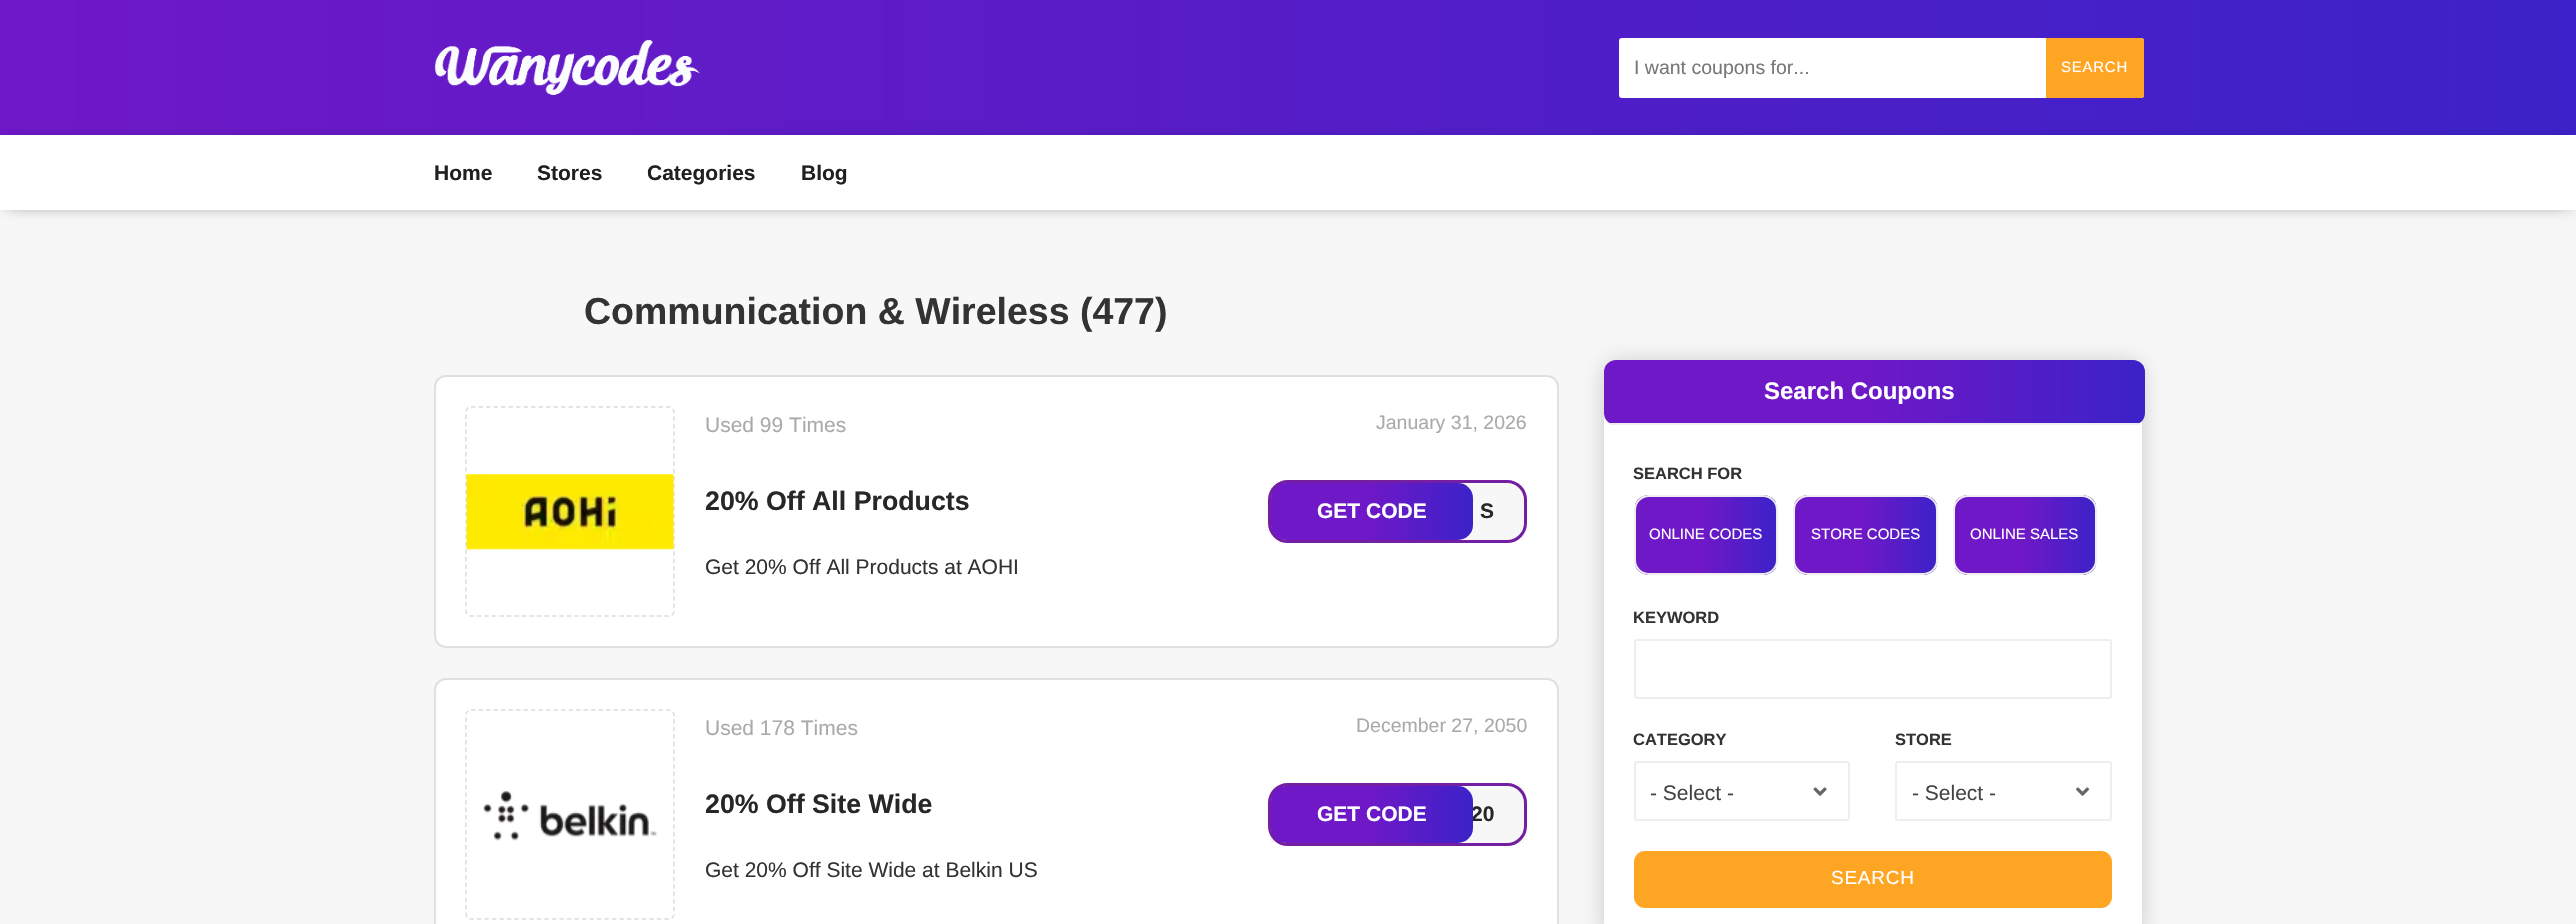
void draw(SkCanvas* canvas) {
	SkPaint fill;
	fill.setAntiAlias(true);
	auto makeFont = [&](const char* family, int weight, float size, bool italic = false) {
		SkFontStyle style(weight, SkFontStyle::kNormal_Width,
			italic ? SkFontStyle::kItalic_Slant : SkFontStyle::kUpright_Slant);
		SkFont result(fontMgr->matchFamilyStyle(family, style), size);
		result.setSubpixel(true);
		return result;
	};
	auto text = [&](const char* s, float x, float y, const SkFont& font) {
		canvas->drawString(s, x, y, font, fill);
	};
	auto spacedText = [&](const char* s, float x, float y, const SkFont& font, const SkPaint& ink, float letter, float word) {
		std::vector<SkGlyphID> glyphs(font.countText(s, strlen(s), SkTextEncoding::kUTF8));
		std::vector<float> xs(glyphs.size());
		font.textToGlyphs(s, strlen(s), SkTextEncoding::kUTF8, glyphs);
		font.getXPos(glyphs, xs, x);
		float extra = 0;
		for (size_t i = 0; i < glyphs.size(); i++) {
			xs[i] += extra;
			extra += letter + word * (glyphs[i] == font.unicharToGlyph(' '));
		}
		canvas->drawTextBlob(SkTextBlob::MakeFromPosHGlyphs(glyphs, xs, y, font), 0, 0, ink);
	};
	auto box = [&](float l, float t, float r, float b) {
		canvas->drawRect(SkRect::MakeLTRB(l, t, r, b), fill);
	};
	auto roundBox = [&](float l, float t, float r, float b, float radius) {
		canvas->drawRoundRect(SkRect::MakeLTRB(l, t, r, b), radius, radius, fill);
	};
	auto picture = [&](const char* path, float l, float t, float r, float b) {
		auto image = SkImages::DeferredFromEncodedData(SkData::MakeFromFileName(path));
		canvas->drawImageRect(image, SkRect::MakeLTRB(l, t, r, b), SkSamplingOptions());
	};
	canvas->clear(0xFFF7F7F7);
	{
		const SkColor colors[] = {0xFF6F18C7, 0xFF3C22C8};
		const float stops[] = {0, 1};
		const SkPoint ends[] = {{0, 68}, {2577, 67}};
		fill.setShader(SkGradientShader::MakeLinear(ends, colors, stops, 2, SkTileMode::kClamp));
		fill.setAlpha(255);
	}
	box(0, 0, 2576, 135);
	picture("image0.png", 434, 39, 700, 95);
	fill.setShader(nullptr);
	fill.setColor(0xFFFFFFFF);
	roundBox(1619, 38, 2144, 98, 3);
	fill.setColor(0xFFFFA524);
	canvas->drawPath(SkPathBuilder().moveTo(2046, 38).lineTo(2141, 38).cubicTo(2142.5f, 38, 2144, 39.5f, 2144, 41).lineTo(2144, 95).cubicTo(2144, 96.5f, 2142.5f, 98, 2141, 98).lineTo(2046, 98).close().detach(), fill);
	fill.setColor(0x99000000);
	fill.setMaskFilter(SkMaskFilter::MakeBlur(kNormal_SkBlurStyle, 7.5f));
	canvas->drawRect(SkRect::MakeLTRB(8, 144, 2570, 204), fill);
	fill.setMaskFilter(nullptr);
	fill.setColor(0xFFFFFFFF);
	box(0, 135, 2576, 210);
	canvas->drawRoundRect(SkRect::MakeLTRB(435, 376, 1558, 647), 11, 11, fill);
	fill.setStyle(SkPaint::kStroke_Style);
	fill.setStrokeWidth(2);
	fill.setColor(0xFFE0E0E0);
	canvas->drawRoundRect(SkRect::MakeLTRB(435, 376, 1558, 647), 11, 11, fill);
	fill.setStrokeWidth(1.5f);
	fill.setColor(0xFFDDDDDD);
	fill.setPathEffect(SkDashPathEffect::Make({{4.5f, 3}}, 0));
	canvas->drawPath(SkPathBuilder().moveTo(471, 407).lineTo(669, 407).cubicTo(672, 407, 674, 409.5f, 674, 412.5f).lineTo(674, 610.5f).cubicTo(674, 613.5f, 672, 616, 669, 616).lineTo(471, 616).cubicTo(468, 616, 466, 613.5f, 466, 610.5f).lineTo(466, 412.5f).cubicTo(466, 409.5f, 468, 407, 471, 407).close().detach(), fill);
	fill.setPathEffect(nullptr);
	picture("image1.png", 466, 474, 674, 550);
	fill.setStrokeWidth(3);
	fill.setColor(0xFF741FA2);
	canvas->drawRoundRect(SkRect::MakeLTRB(1269.5f, 481.5f, 1525.5f, 541.5f), 18.5f, 18.5f, fill);
	fill.setStyle(SkPaint::kFill_Style);
	fill.setColor(0x08000000);
	box(1271, 483, 1524, 540);
	{
		const SkColor colors[] = {0xFF6F18C7, 0xFF3C22C8};
		const float stops[] = {0.48f, 1};
		const SkPoint ends[] = {{1271, 512}, {1473, 512}};
		fill.setShader(SkGradientShader::MakeLinear(ends, colors, stops, 2, SkTileMode::kClamp));
		fill.setAlpha(255);
	}
	roundBox(1271, 483, 1473, 540, 15);
	fill.setShader(nullptr);
	fill.setColor(0xFFFFFFFF);
	canvas->drawRoundRect(SkRect::MakeLTRB(435, 679, 1558, 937), 11, 11, fill);
	fill.setStyle(SkPaint::kStroke_Style);
	fill.setStrokeWidth(2);
	fill.setColor(0xFFE0E0E0);
	canvas->drawRoundRect(SkRect::MakeLTRB(435, 679, 1558, 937), 11, 11, fill);
	fill.setStrokeWidth(1.5f);
	fill.setColor(0xFFDDDDDD);
	fill.setPathEffect(SkDashPathEffect::Make({{4.5f, 3}}, 0));
	canvas->drawPath(SkPathBuilder().moveTo(471, 710).lineTo(669, 710).cubicTo(672, 710, 674, 712.5f, 674, 715.5f).lineTo(674, 913.5f).cubicTo(674, 916.5f, 672, 919, 669, 919).lineTo(471, 919).cubicTo(468, 919, 466, 916.5f, 466, 913.5f).lineTo(466, 715.5f).cubicTo(466, 712.5f, 468, 710, 471, 710).close().detach(), fill);
	fill.setPathEffect(nullptr);
	picture("image2.png", 483, 790, 658, 841);
	fill.setStrokeWidth(3);
	fill.setColor(0xFF741FA2);
	canvas->drawRoundRect(SkRect::MakeLTRB(1269.5f, 784.5f, 1525.5f, 844.5f), 18.5f, 18.5f, fill);
	fill.setStyle(SkPaint::kFill_Style);
	fill.setColor(0x08000000);
	box(1271, 786, 1524, 843);
	fill.setColor(0x30000000);
	fill.setMaskFilter(SkMaskFilter::MakeBlur(kNormal_SkBlurStyle, 10.5f));
	canvas->drawRoundRect(SkRect::MakeLTRB(1604, 362, 2142, 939), 15, 15, fill);
	fill.setMaskFilter(nullptr);
	fill.setColor(0xFFFFFFFF);
	roundBox(1604, 360, 2142, 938, 15);
	{
		const SkColor colors[] = {0xFF6F18C7, 0xFF3C22C8};
		const float stops[] = {0.48f, 1};
		const SkPoint ends[] = {{1604, 392}, {2145, 392}};
		fill.setShader(SkGradientShader::MakeLinear(ends, colors, stops, 2, SkTileMode::kClamp));
		fill.setAlpha(255);
	}
	roundBox(1604, 360, 2145, 425, 12);
	fill.setShader(nullptr);
	fill.setColor(0xFFEEEEEE);
	box(1610, 423, 2139, 425);
	canvas->save();
	canvas->clipPath(SkPathBuilder().moveTo(1649, 495).lineTo(1763, 495).cubicTo(1771.5f, 495, 1778, 501.5f, 1778, 510).lineTo(1778, 560).cubicTo(1778, 568.5f, 1771.5f, 575, 1763, 575).lineTo(1649, 575).cubicTo(1640.5f, 575, 1634, 568.5f, 1634, 560).lineTo(1634, 510).cubicTo(1634, 501.5f, 1640.5f, 495, 1649, 495).close().detach(), true);
	{
		const SkColor colors[] = {0xFF6F18C7, 0xFF3C22C8};
		const float stops[] = {0.48f, 1};
		const SkPoint ends[] = {{1635, 535}, {1776, 535}};
		fill.setShader(SkGradientShader::MakeLinear(ends, colors, stops, 2, SkTileMode::kClamp));
		fill.setAlpha(255);
	}
	box(1635, 495, 1776, 575);
	canvas->restore();
	fill.setStyle(SkPaint::kStroke_Style);
	fill.setStrokeWidth(2);
	fill.setShader(nullptr);
	fill.setColor(0xFFEEEEEE);
	canvas->drawRoundRect(SkRect::MakeLTRB(1635, 496, 1777, 574), 14, 14, fill);
	canvas->save();
	canvas->clipPath(SkPathBuilder().moveTo(1808, 495).lineTo(1923, 495).cubicTo(1931.5f, 495, 1938, 501.5f, 1938, 510).lineTo(1938, 560).cubicTo(1938, 568.5f, 1931.5f, 575, 1923, 575).lineTo(1808, 575).cubicTo(1799.5f, 575, 1793, 568.5f, 1793, 560).lineTo(1793, 510).cubicTo(1793, 501.5f, 1799.5f, 495, 1808, 495).close().detach(), true);
	fill.setStyle(SkPaint::kFill_Style);
	{
		const SkColor colors[] = {0xFF6F18C7, 0xFF3C22C8};
		const float stops[] = {0.48f, 1};
		const SkPoint ends[] = {{1794, 535}, {1937, 535}};
		fill.setShader(SkGradientShader::MakeLinear(ends, colors, stops, 2, SkTileMode::kClamp));
		fill.setAlpha(255);
	}
	box(1794, 495, 1937, 575);
	canvas->restore();
	fill.setStyle(SkPaint::kStroke_Style);
	fill.setShader(nullptr);
	fill.setColor(0xFFEEEEEE);
	canvas->drawRoundRect(SkRect::MakeLTRB(1794, 496, 1937, 574), 14, 14, fill);
	canvas->save();
	canvas->clipPath(SkPathBuilder().moveTo(1968, 495).lineTo(2082, 495).cubicTo(2090.5f, 495, 2097, 501.5f, 2097, 510).lineTo(2097, 560).cubicTo(2097, 568.5f, 2090.5f, 575, 2082, 575).lineTo(1968, 575).cubicTo(1959.5f, 575, 1953, 568.5f, 1953, 560).lineTo(1953, 510).cubicTo(1953, 501.5f, 1959.5f, 495, 1968, 495).close().detach(), true);
	fill.setStyle(SkPaint::kFill_Style);
	{
		const SkColor colors[] = {0xFF6F18C7, 0xFF3C22C8};
		const float stops[] = {0.48f, 1};
		const SkPoint ends[] = {{1955, 535}, {2096, 535}};
		fill.setShader(SkGradientShader::MakeLinear(ends, colors, stops, 2, SkTileMode::kClamp));
		fill.setAlpha(255);
	}
	box(1955, 495, 2096, 575);
	canvas->restore();
	fill.setStyle(SkPaint::kStroke_Style);
	fill.setShader(nullptr);
	fill.setColor(0xFFEEEEEE);
	canvas->drawRoundRect(SkRect::MakeLTRB(1954, 496, 2096, 574), 14, 14, fill);
	canvas->drawRoundRect(SkRect::MakeLTRB(1635, 640, 2111, 698), 2, 2, fill);
	canvas->drawRoundRect(SkRect::MakeLTRB(1635, 762, 1849, 820), 2, 2, fill);
	picture("image3.png", 1813, 787, 1827, 796);
	canvas->drawRoundRect(SkRect::MakeLTRB(1896, 762, 2111, 820), 2, 2, fill);
	picture("image4.png", 2076, 787, 2090, 796);
	fill.setStyle(SkPaint::kFill_Style);
	fill.setColor(0xFFFFA524);
	roundBox(1634, 851, 2112, 908, 11);
	auto font1 = makeFont("Liberation Sans", 400, 19.5f);
	fill.setColor(0xFF777777);
	text("I want coupons for...", 1634, 74, font1);
	auto font2 = makeFont("Liberation Sans", 400, 15);
	fill.setColor(0xFFFFFFFF);
	spacedText("SEARCH", 2061, 72, font2, fill, 0.75f, 0);
	auto font3 = makeFont("Liberation Sans", 700, 21);
	fill.setColor(0xFF202020);
	text("Home", 434, 180, font3);
	text("Stores", 537, 180, font3);
	text("Categories", 647, 180, font3);
	text("Blog", 801, 180, font3);
	auto font4 = makeFont("Liberation Sans", 700, 37.5f);
	fill.setColor(0xFF333333);
	text("Communication & Wireless (477)", 584, 324, font4);
	auto font5 = makeFont("Liberation Sans", 400, 21);
	fill.setColor(0xFFAAAAAA);
	text("Used 99 Times", 705, 432, font5);
	auto font6 = makeFont("Liberation Sans", 700, 26.75f);
	fill.setColor(0xFF272727);
	text("20% Off All Products", 705, 510, font6);
	fill.setColor(0xFF333333);
	text("Get 20% Off All Products at AOHI", 705, 574, font5);
	fill.setColor(0xFFAAAAAA);
	text("January 31, 2026", 1376, 429, font1);
	fill.setColor(0xFFFFFFFF);
	text("GET CODE", 1317, 518, font3);
	fill.setColor(0xFF272727);
	text("S", 1480, 518, font3);
	fill.setColor(0xFFAAAAAA);
	text("Used 178 Times", 705, 735, font5);
	fill.setColor(0xFF272727);
	text("20% Off Site Wide", 705, 813, font6);
	fill.setColor(0xFF333333);
	text("Get 20% Off Site Wide at Belkin US", 705, 877, font5);
	fill.setColor(0xFFAAAAAA);
	text("December 27, 2050", 1356, 732, font1);
	fill.setColor(0xFF272727);
	text("20", 1471, 821, font3);
	{
		const SkColor colors[] = {0xFF6F18C7, 0xFF3C22C8};
		const float stops[] = {0.48f, 1};
		const SkPoint ends[] = {{1271, 815}, {1473, 815}};
		fill.setShader(SkGradientShader::MakeLinear(ends, colors, stops, 2, SkTileMode::kClamp));
		fill.setAlpha(255);
	}
	roundBox(1271, 786, 1473, 843, 15);
	fill.setShader(nullptr);
	fill.setColor(0xFFFFFFFF);
	text("GET CODE", 1317, 821, font3);
	auto font7 = makeFont("Liberation Sans", 700, 24);
	text("Search Coupons", 1764, 399, font7);
	auto font8 = makeFont("Liberation Sans", 700, 16.5f);
	fill.setColor(0xFF333333);
	text("SEARCH FOR", 1633, 479, font8);
	fill.setColor(0xFFFFFFFF);
	text("ONLINE CODES", 1649, 539, font2);
	text("STORE CODES", 1811, 539, font2);
	text("ONLINE SALES", 1970, 539, font2);
	fill.setColor(0xFF333333);
	text("KEYWORD", 1633, 623, font8);
	text("CATEGORY", 1633, 745, font8);
	fill.setColor(0xFF444444);
	text("- Select -", 1650, 800, font5);
	fill.setColor(0xFF333333);
	text("STORE", 1895, 745, font8);
	fill.setColor(0xFF444444);
	text("- Select -", 1912, 800, font5);
	auto font9 = makeFont("Liberation Sans", 400, 19);
	fill.setColor(0xFFFFFFFF);
	spacedText("SEARCH", 1831, 884, font9, fill, 0.75f, 0);
}
